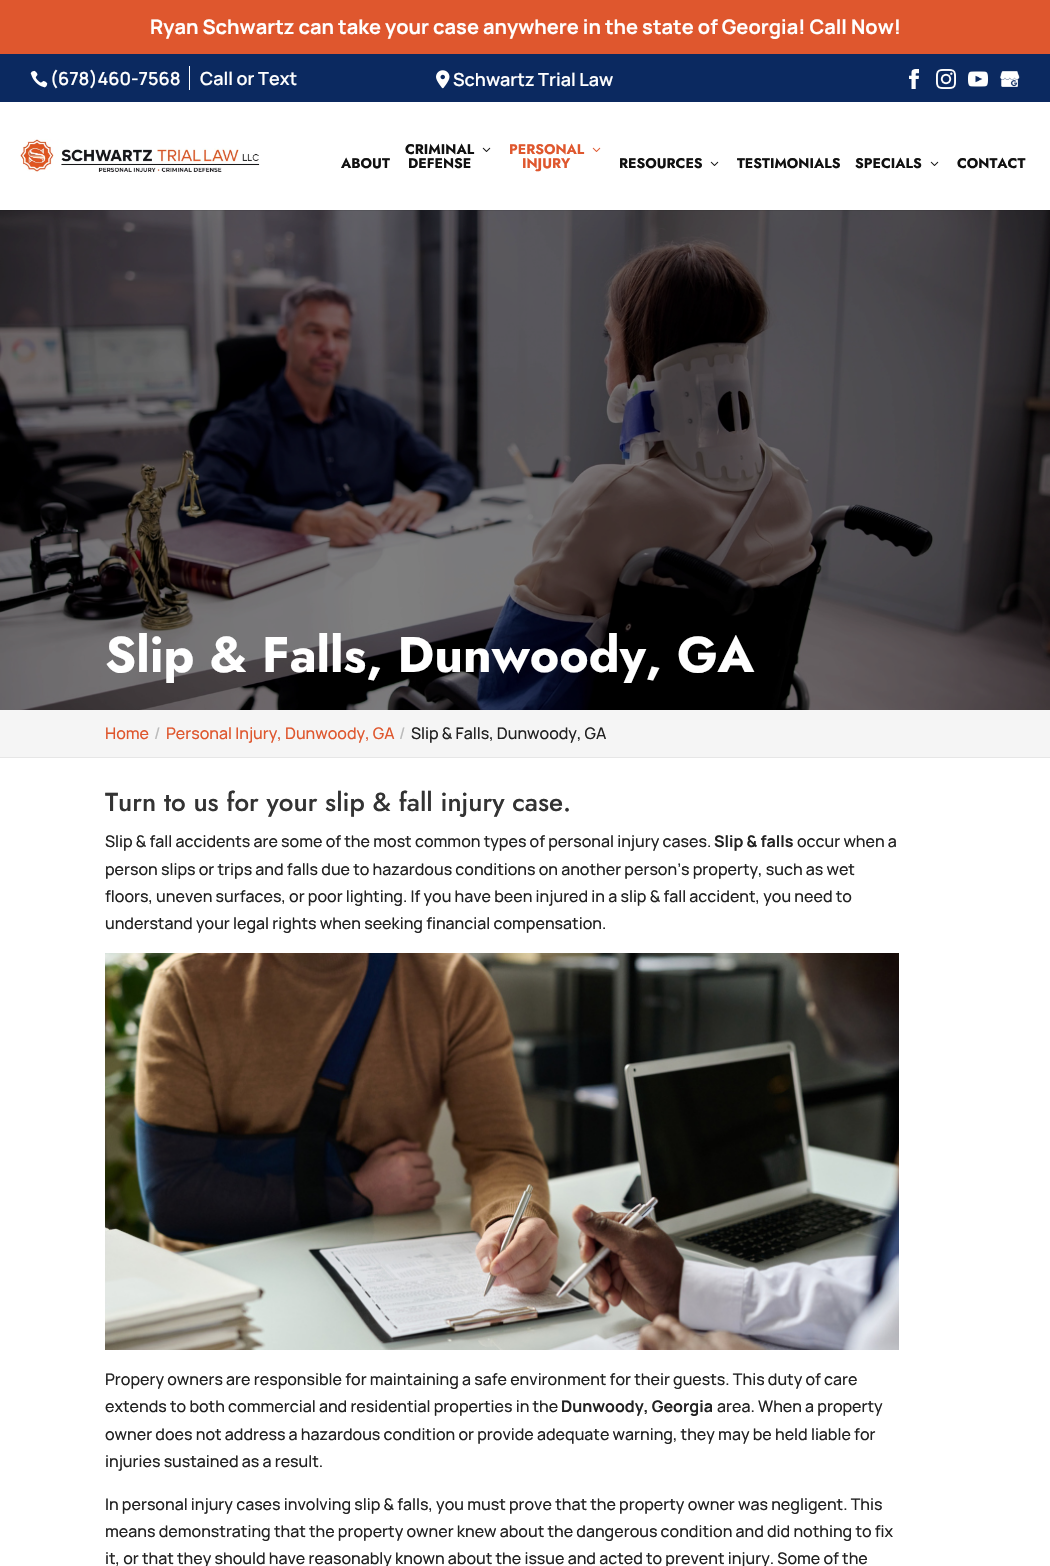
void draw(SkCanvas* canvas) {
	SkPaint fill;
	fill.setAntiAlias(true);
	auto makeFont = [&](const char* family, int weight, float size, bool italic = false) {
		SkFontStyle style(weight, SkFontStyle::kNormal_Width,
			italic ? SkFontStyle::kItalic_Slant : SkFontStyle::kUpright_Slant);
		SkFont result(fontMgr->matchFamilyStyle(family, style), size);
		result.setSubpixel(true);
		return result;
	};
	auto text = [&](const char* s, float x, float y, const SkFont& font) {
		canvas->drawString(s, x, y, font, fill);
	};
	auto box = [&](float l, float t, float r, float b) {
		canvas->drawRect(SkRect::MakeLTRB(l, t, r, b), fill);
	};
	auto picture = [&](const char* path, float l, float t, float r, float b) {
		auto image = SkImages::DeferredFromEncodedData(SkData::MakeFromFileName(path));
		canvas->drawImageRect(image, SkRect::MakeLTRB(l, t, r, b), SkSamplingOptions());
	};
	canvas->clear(0xFFFFFFFF);
	fill.setColor(0xFF0B2960);
	box(0, 54, 1050, 102);
	fill.setColor(0xFFDF572E);
	box(0, 0, 1050, 54);
	picture("image0.png", 30, 70, 48, 88);
	fill.setColor(0xFFFFFFFF);
	box(189, 66, 190, 90);
	picture("image1.png", 436, 70, 450, 89);
	picture("image2.png", 909, 69, 919, 89);
	picture("image3.png", 936, 69, 956, 89);
	picture("image4.png", 968, 71, 988, 87);
	picture("image5.png", 1000, 71, 1020, 87);
	picture("image9.png", 0, 210, 1050, 710);
	fill.setColor(0x1A000000);
	box(0, 210, 1050, 211);
	picture("image6.png", 20, 139, 260, 172);
	picture("image7.png", 482, 147, 491, 152);
	picture("image8.png", 592, 147, 601, 152);
	picture("image7.png", 710, 161, 719, 166);
	picture("image7.png", 930, 161, 939, 166);
	fill.setColor(0xFFE6E6E6);
	box(0, 757, 1050, 758);
	fill.setColor(0xFFF5F5F5);
	box(0, 710, 1050, 757);
	picture("image10.png", 105, 953, 899, 1350);
	auto font1 = makeFont("Manrope", 700, 20);
	fill.setColor(0xFFFFFFFF);
	text("Ryan Schwartz can take your case anywhere in the state of Georgia! Call Now!", 150, 34, font1);
	auto font2 = makeFont("Manrope", 600, 18);
	text("(678)460-7568", 50, 85, font2);
	text("Call or Text", 200, 85, font2);
	text("Schwartz Trial Law", 453, 86, font2);
	auto font3 = makeFont("Jost", 700, 14);
	fill.setColor(0xFF111111);
	text("ABOUT", 341, 168, font3);
	text("CRIMINAL", 405, 154, font3);
	text("DEFENSE", 408, 168, font3);
	fill.setColor(0xFFDF572E);
	text("PERSONAL", 509, 154, font3);
	text("INJURY", 522, 168, font3);
	fill.setColor(0xFF111111);
	text("RESOURCES", 619, 168, font3);
	text("TESTIMONIALS", 737, 168, font3);
	text("SPECIALS", 855, 168, font3);
	text("CONTACT", 957, 168, font3);
	auto font4 = makeFont("Jost", 700, 50);
	fill.setColor(0xFFFFFFFF);
	text("Slip & Falls, Dunwoody, GA", 105, 672, font4);
	auto font5 = makeFont("Manrope", 500, 16);
	fill.setColor(0xFFDF572E);
	text("Home", 105, 739, font5);
	fill.setColor(0xFFBBBBBB);
	text("/", 154, 739, font5);
	fill.setColor(0xFFDF572E);
	text("Personal Injury, Dunwoody, GA", 166, 739, font5);
	fill.setColor(0xFFBBBBBB);
	text("/", 399, 739, font5);
	fill.setColor(0xFF222222);
	text("Slip & Falls, Dunwoody, GA", 411, 739, font5);
	auto font6 = makeFont("Jost", 500, 26);
	fill.setColor(0xFF333333);
	text("Turn to us for your slip & fall injury case.", 105, 811, font6);
	fill.setColor(0xFF222222);
	text("Slip & fall accidents are some of the most common types of personal injury cases.", 105, 847, font5);
	auto font7 = makeFont("Manrope", 700, 16);
	text("Slip & falls", 714, 847, font7);
	text("occur when a", 797, 847, font5);
	text("person slips or trips and falls due to hazardous conditions on another person’s property, such as wet", 105, 875, font5);
	text("floors, uneven surfaces, or poor lighting. If you have been injured in a slip & fall accident, you need to", 105, 902, font5);
	text("understand your legal rights when seeking financial compensation.", 105, 929, font5);
	text("Propery owners are responsible for maintaining a safe environment for their guests. This duty of care", 105, 1385, font5);
	text("extends to both commercial and residential properties in the", 105, 1412, font5);
	text("Dunwoody, Georgia", 561, 1412, font7);
	text("area. When a property", 717, 1412, font5);
	text("owner does not address a hazardous condition or provide adequate warning, they may be held liable for", 105, 1440, font5);
	text("injuries sustained as a result.", 105, 1467, font5);
	text("In personal injury cases involving slip & falls, you must prove that the property owner was negligent. This", 105, 1510, font5);
	text("means demonstrating that the property owner knew about the dangerous condition and did nothing to fix", 105, 1537, font5);
	text("it, or that they should have reasonably known about the issue and acted to prevent injury. Some of the", 105, 1564, font5);
}
